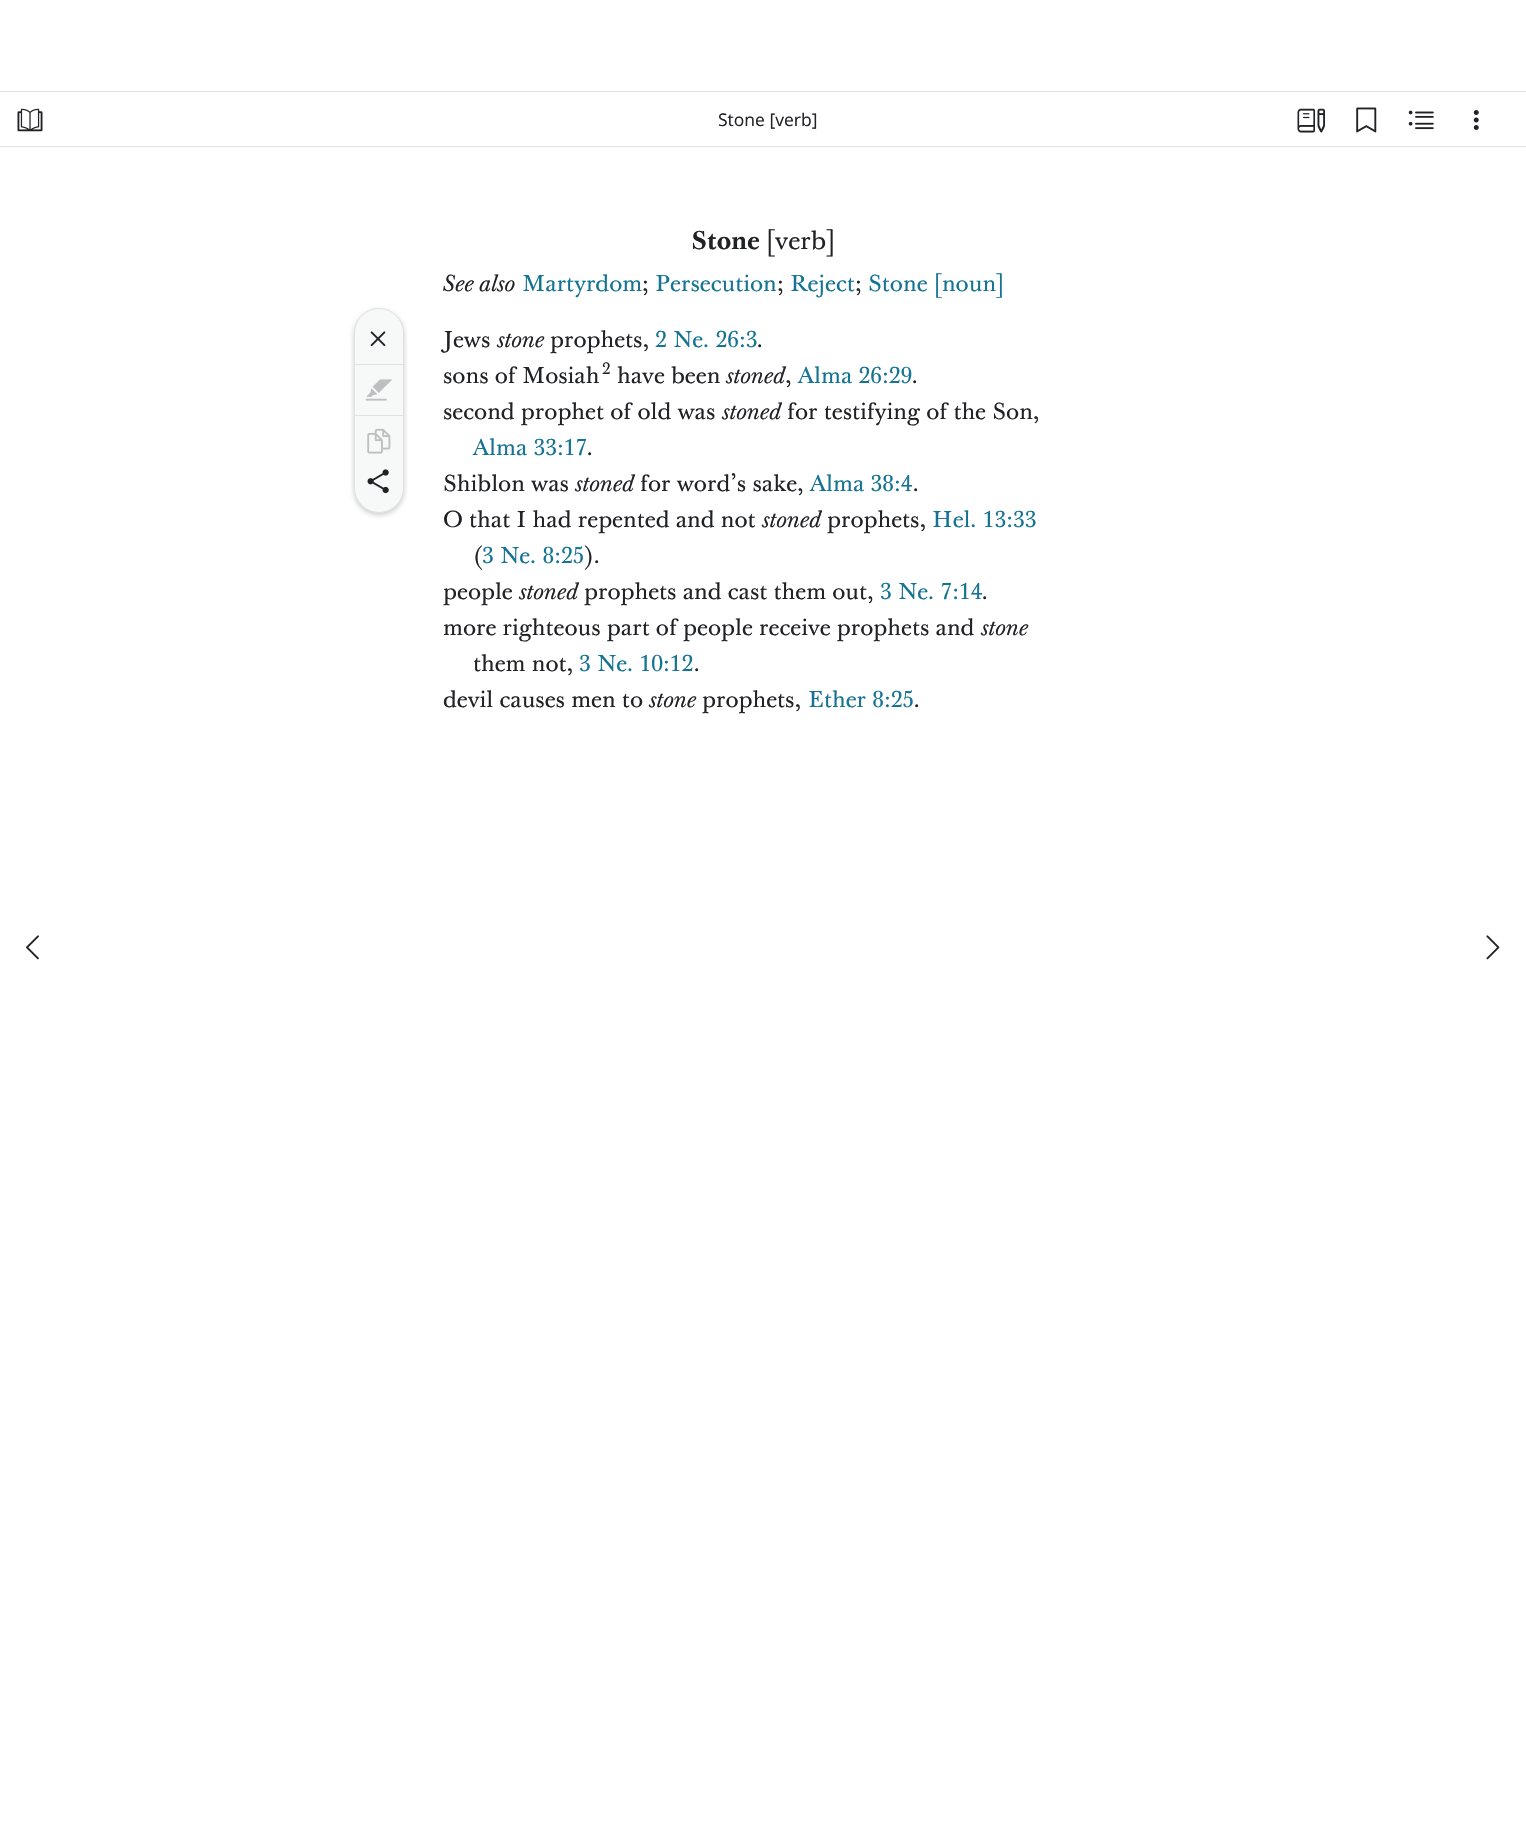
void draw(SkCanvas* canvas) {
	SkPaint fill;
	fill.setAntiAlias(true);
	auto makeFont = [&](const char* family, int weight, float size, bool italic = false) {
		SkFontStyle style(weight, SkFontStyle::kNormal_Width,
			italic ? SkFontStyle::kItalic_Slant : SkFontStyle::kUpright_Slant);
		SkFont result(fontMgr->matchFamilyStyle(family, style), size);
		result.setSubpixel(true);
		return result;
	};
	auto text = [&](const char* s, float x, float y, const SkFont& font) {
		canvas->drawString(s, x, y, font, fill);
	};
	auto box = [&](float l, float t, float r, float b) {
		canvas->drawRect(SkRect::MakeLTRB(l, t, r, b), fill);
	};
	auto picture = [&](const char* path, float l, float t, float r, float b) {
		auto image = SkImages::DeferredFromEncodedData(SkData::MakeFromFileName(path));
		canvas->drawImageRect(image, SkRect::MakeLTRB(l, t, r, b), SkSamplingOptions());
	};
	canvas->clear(0xFFFFFFFF);
	fill.setColor(0xFFE0E2E2);
	box(0, 91, 1526, 92);
	box(0, 146, 1526, 147);
	picture("image0.png", 17, 108, 43, 132);
	picture("image1.png", 1297, 108, 1325, 133);
	picture("image2.png", 1356, 107, 1377, 133);
	picture("image3.png", 1408, 110, 1434, 130);
	picture("image4.png", 1473, 110, 1479, 130);
	fill.setColor(0x33000000);
	fill.setMaskFilter(SkMaskFilter::MakeBlur(kNormal_SkBlurStyle, 2.5f));
	canvas->drawRoundRect(SkRect::MakeLTRB(354, 310, 404, 515), 25, 25, fill);
	fill.setMaskFilter(nullptr);
	fill.setColor(0xFFF7F8F8);
	canvas->drawRoundRect(SkRect::MakeLTRB(354.5f, 308.5f, 403.5f, 512.5f), 24.5f, 24.5f, fill);
	fill.setStyle(SkPaint::kStroke_Style);
	fill.setStrokeWidth(1);
	fill.setColor(0xFFE0E2E2);
	canvas->drawRoundRect(SkRect::MakeLTRB(354.5f, 308.5f, 403.5f, 512.5f), 24.5f, 24.5f, fill);
	picture("image5.png", 370, 331, 386, 347);
	fill.setStyle(SkPaint::kFill_Style);
	box(355, 364, 403, 365);
	picture("image6.png", 365, 379, 392, 401);
	box(355, 415, 403, 416);
	picture("image7.png", 367, 428, 391, 454);
	picture("image8.png", 367, 469, 389, 494);
	picture("image9.png", 26, 935, 39, 960);
	picture("image10.png", 1486, 935, 1500, 960);
	auto font1 = makeFont("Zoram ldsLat", 400, 17.5f);
	fill.setColor(0xFF212225);
	text("Stone [verb]", 718, 126, font1);
	auto font2 = makeFont("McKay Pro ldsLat", 700, 25);
	text("Stone", 691, 249, font2);
	auto font3 = makeFont("McKay Pro ldsLat", 400, 25);
	text("[verb]", 766, 249, font3);
	auto font4 = makeFont("McKay Pro ldsLat", 400, 22.5f, true);
	text("See also", 443, 291, font4);
	auto font5 = makeFont("McKay Pro ldsLat", 400, 22.5f);
	fill.setColor(0xFF157493);
	text("Martyrdom", 522, 291, font5);
	fill.setColor(0xFF212225);
	text(";", 642, 291, font5);
	fill.setColor(0xFF157493);
	text("Persecution", 655, 291, font5);
	fill.setColor(0xFF212225);
	text(";", 777, 291, font5);
	fill.setColor(0xFF157493);
	text("Reject", 790, 291, font5);
	fill.setColor(0xFF212225);
	text(";", 855, 291, font5);
	fill.setColor(0xFF157493);
	text("Stone [noun]", 868, 291, font5);
	fill.setColor(0xFF212225);
	text("Jews", 443, 347, font5);
	text("stone", 497, 347, font4);
	text("prophets,", 550, 347, font5);
	fill.setColor(0xFF157493);
	text("2 Ne. 26:3", 655, 347, font5);
	fill.setColor(0xFF212225);
	text(".", 757, 347, font5);
	text("sons of Mosiah", 443, 383, font5);
	auto font6 = makeFont("McKay Pro ldsLat", 400, 16);
	text("2", 602, 374, font6);
	text("have been", 617, 383, font5);
	text("stoned", 726, 383, font4);
	text(",", 785, 383, font5);
	fill.setColor(0xFF157493);
	text("Alma 26:29", 798, 383, font5);
	fill.setColor(0xFF212225);
	text(".", 912, 383, font5);
	text("second prophet of old was", 443, 419, font5);
	text("stoned", 722, 419, font4);
	text("for testifying of the Son,", 787, 419, font5);
	fill.setColor(0xFF157493);
	text("Alma 33:17", 473, 455, font5);
	fill.setColor(0xFF212225);
	text(".", 587, 455, font5);
	text("Shiblon was", 443, 491, font5);
	text("stoned", 575, 491, font4);
	text("for word’s sake,", 640, 491, font5);
	fill.setColor(0xFF157493);
	text("Alma 38:4", 810, 491, font5);
	fill.setColor(0xFF212225);
	text(".", 913, 491, font5);
	text("O that I had repented and not", 443, 527, font5);
	text("stoned", 762, 527, font4);
	text("prophets,", 827, 527, font5);
	fill.setColor(0xFF157493);
	text("Hel. 13:33", 932, 527, font5);
	fill.setColor(0xFF212225);
	text("(", 473, 563, font5);
	fill.setColor(0xFF157493);
	text("3 Ne. 8:25", 482, 563, font5);
	fill.setColor(0xFF212225);
	text(").", 585, 563, font5);
	text("people", 443, 599, font5);
	text("stoned", 519, 599, font4);
	text("prophets and cast them out,", 584, 599, font5);
	fill.setColor(0xFF157493);
	text("3 Ne. 7:14", 880, 599, font5);
	fill.setColor(0xFF212225);
	text(".", 982, 599, font5);
	text("more righteous part of people receive prophets and", 443, 635, font5);
	text("stone", 981, 635, font4);
	text("them not,", 473, 671, font5);
	fill.setColor(0xFF157493);
	text("3 Ne. 10:12", 579, 671, font5);
	fill.setColor(0xFF212225);
	text(".", 694, 671, font5);
	text("devil causes men to", 443, 707, font5);
	text("stone", 649, 707, font4);
	text("prophets,", 702, 707, font5);
	fill.setColor(0xFF157493);
	text("Ether 8:25", 808, 707, font5);
	fill.setColor(0xFF212225);
	text(".", 914, 707, font5);
}
